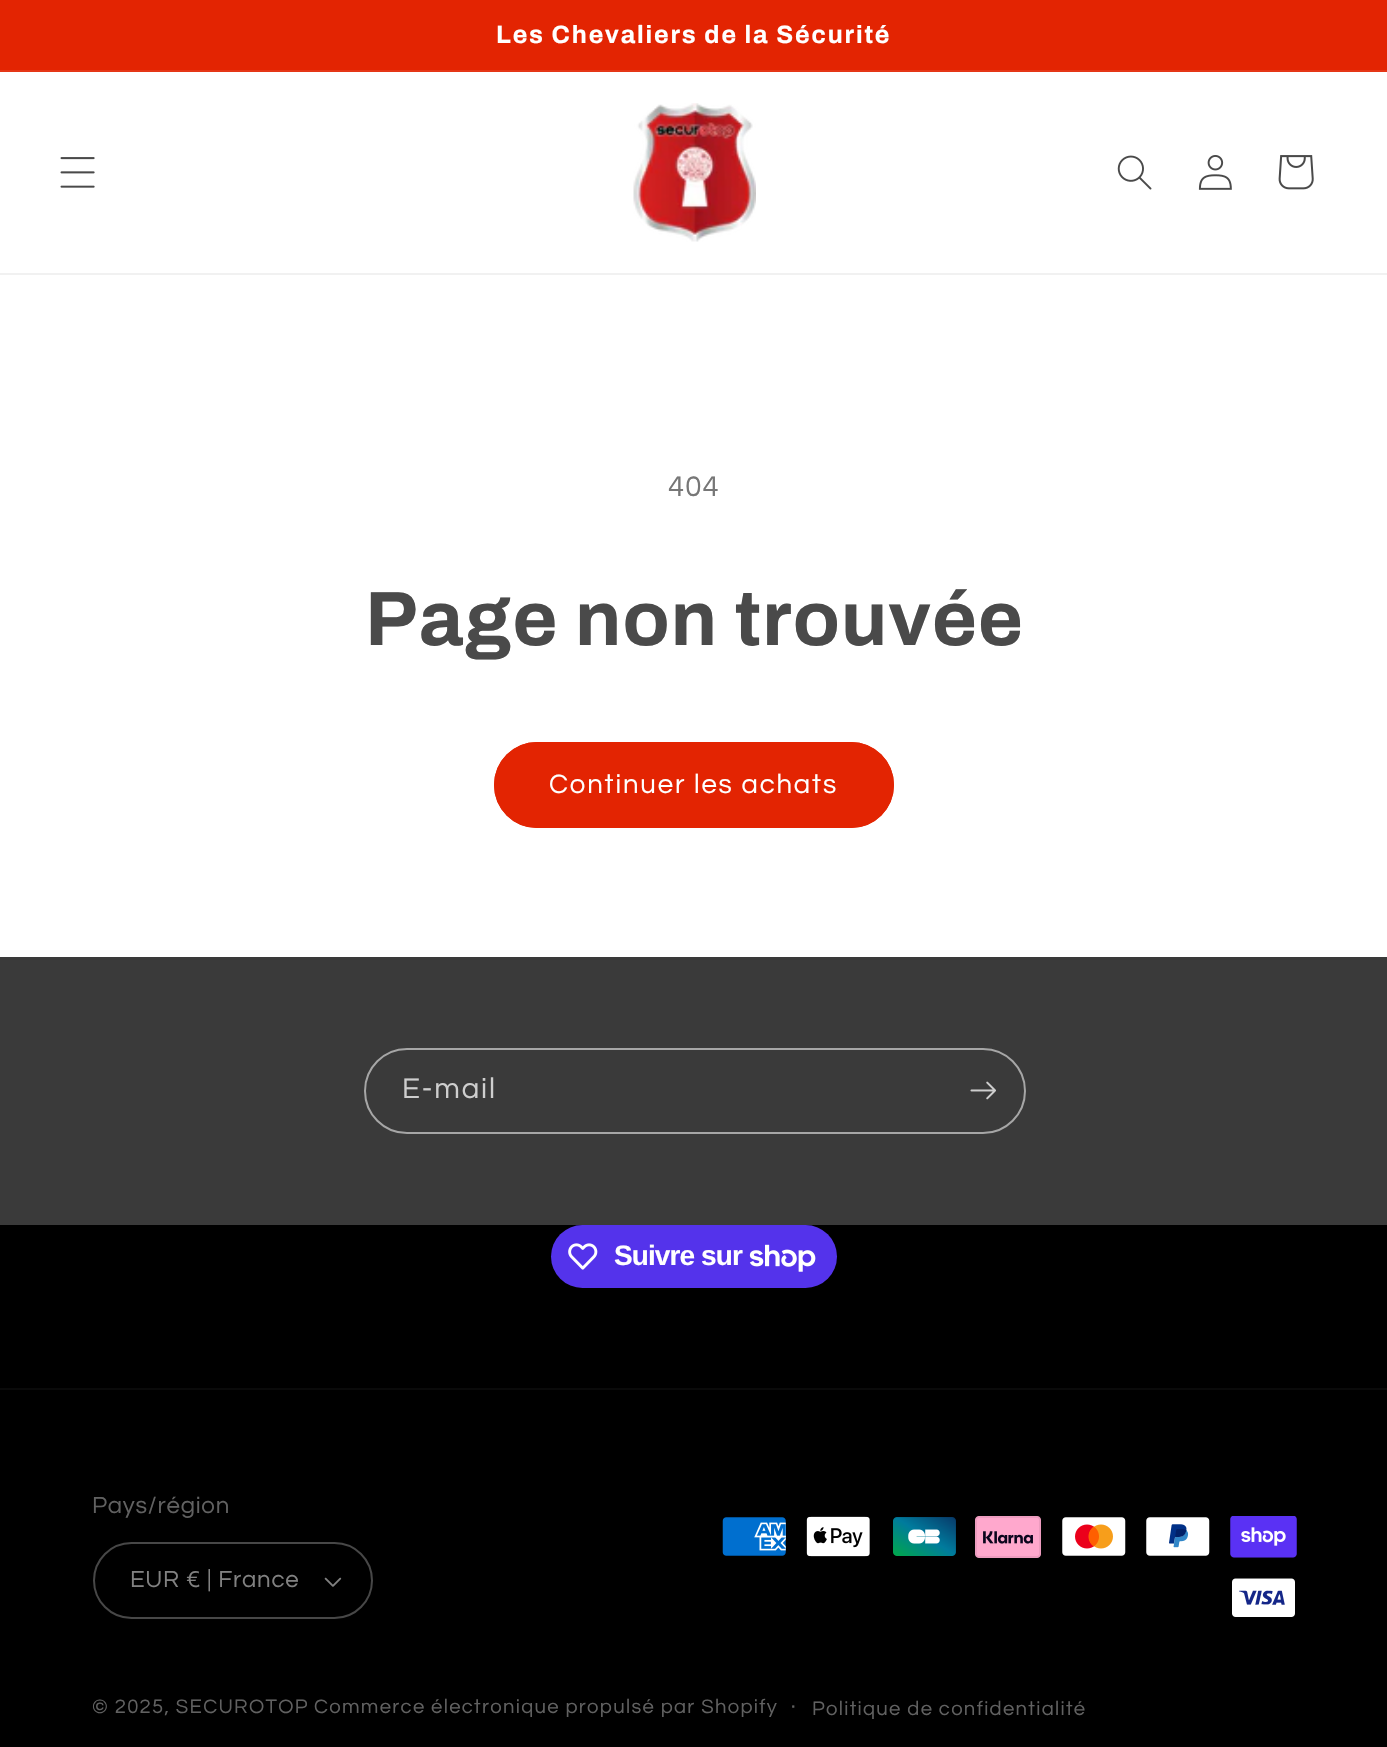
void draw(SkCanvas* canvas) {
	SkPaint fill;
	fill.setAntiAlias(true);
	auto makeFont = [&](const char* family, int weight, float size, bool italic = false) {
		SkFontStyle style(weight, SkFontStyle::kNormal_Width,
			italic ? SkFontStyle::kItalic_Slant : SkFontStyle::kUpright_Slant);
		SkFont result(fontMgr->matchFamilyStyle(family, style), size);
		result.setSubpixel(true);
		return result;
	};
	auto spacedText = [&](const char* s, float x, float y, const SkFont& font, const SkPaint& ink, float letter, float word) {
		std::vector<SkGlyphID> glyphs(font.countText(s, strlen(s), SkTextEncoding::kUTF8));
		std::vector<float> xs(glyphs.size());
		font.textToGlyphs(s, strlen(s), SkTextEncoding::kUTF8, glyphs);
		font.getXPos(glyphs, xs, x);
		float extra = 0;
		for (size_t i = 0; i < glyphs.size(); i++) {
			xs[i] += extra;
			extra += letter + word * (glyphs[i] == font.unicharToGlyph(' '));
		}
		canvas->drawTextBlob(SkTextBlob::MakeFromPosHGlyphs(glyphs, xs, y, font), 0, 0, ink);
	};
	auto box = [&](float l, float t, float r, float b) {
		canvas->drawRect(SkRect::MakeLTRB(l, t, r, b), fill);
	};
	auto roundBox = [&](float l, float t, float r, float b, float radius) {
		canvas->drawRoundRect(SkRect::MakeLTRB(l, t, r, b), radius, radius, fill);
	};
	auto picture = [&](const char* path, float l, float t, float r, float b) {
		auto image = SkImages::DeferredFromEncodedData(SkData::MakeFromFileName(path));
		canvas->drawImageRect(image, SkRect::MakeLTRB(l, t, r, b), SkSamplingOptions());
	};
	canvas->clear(0xFFFFFFFF);
	fill.setColor(0xFFE32402);
	box(0, 0, 1387, 70);
	fill.setColor(0xFFE53616);
	box(0, 70, 1387, 72);
	fill.setColor(0xFFF1F1F1);
	box(0, 273, 1387, 275);
	picture("image0.png", 60, 157, 95, 188);
	picture("image1.png", 633, 103, 756, 242);
	picture("image2.png", 1117, 155, 1152, 190);
	picture("image3.png", 1198, 155, 1232, 190);
	picture("image4.png", 1278, 155, 1314, 190);
	fill.setColor(0xFFE32402);
	roundBox(494, 742, 894, 828, 43);
	fill.setStyle(SkPaint::kStroke_Style);
	fill.setStrokeWidth(2);
	canvas->drawRoundRect(SkRect::MakeLTRB(495, 743, 893, 827), 42, 42, fill);
	fill.setStyle(SkPaint::kFill_Style);
	fill.setColor(0xFF3A3A3A);
	box(0, 957, 1387, 1225);
	fill.setStyle(SkPaint::kStroke_Style);
	fill.setColor(0xFFA6A6A6);
	canvas->drawRoundRect(SkRect::MakeLTRB(365, 1049, 1025, 1133), 42, 42, fill);
	picture("image5.png", 970, 1081, 996, 1100);
	fill.setStyle(SkPaint::kFill_Style);
	fill.setColor(0xFF000000);
	box(0, 1225, 1387, 1747);
	fill.setColor(0xFF5433EB);
	roundBox(551, 1225, 837, 1288, 31.5f);
	picture("image6.png", 568, 1243, 598, 1270);
	picture("image7.png", 749, 1244, 816, 1272);
	fill.setColor(0xFF0A0A0A);
	box(0, 1388, 1387, 1390);
	picture("image8.png", 324, 1577, 342, 1587);
	fill.setStyle(SkPaint::kStroke_Style);
	fill.setColor(0xFF474747);
	canvas->drawRoundRect(SkRect::MakeLTRB(94, 1543, 372, 1618), 37.5f, 37.5f, fill);
	picture("image9.png", 722, 1517, 786, 1556);
	picture("image10.png", 806, 1516, 870, 1557);
	picture("image11.png", 893, 1517, 956, 1556);
	picture("image12.png", 975, 1516, 1041, 1558);
	picture("image13.png", 1062, 1517, 1126, 1556);
	picture("image14.png", 1146, 1517, 1210, 1556);
	picture("image15.png", 1230, 1516, 1297, 1558);
	picture("image16.png", 1232, 1578, 1295, 1617);
	auto font1 = makeFont("Archivo", 700, 25);
	fill.setStyle(SkPaint::kFill_Style);
	fill.setColor(0xFFFFFFFF);
	spacedText("Les Chevaliers de la Sécurité", 496, 43, font1, fill, 1.85f, 0);
	auto font2 = makeFont("Questrial", 400, 29.5f);
	fill.setColor(0xFF777777);
	spacedText("404", 668, 496, font2, fill, 1, 0);
	auto font3 = makeFont("Archivo", 700, 77);
	fill.setColor(0xFF4A4A4A);
	spacedText("Page non trouvée", 365, 645, font3, fill, 1.2f, 0);
	auto font4 = makeFont("Questrial", 400, 27.5f);
	fill.setColor(0xFFFFFFFF);
	spacedText("Continuer les achats", 549, 793, font4, fill, 1.85f, 0);
	fill.setColor(0xFFCECECE);
	spacedText("E-mail", 402, 1098, font2, fill, 1.85f, 0);
	auto font5 = makeFont("Liberation Sans", 700, 28);
	fill.setColor(0xFFFFFFFF);
	spacedText("Suivre sur", 614, 1265, font5, fill, -0.9f, 0);
	auto font6 = makeFont("Questrial", 400, 24);
	fill.setColor(0xFF616161);
	spacedText("Pays/région", 92, 1513, font6, fill, 0.75f, 0);
	fill.setColor(0xFF818181);
	spacedText("EUR € | France", 130, 1587, font6, fill, 0.75f, 0);
	auto font7 = makeFont("Questrial", 400, 20.25f);
	fill.setColor(0xFF616161);
	spacedText("© 2025, SECUROTOP", 92, 1713, font7, fill, 1.3f, 0);
	spacedText("Commerce électronique propulsé par Shopify", 314, 1713, font7, fill, 1.3f, 0);
	auto font8 = makeFont("Questrial", 400, 22);
	spacedText("·", 791, 1713, font8, fill, 1.3f, 0);
	spacedText("Politique de confidentialité", 812, 1715, font7, fill, 1.3f, 0);
}
